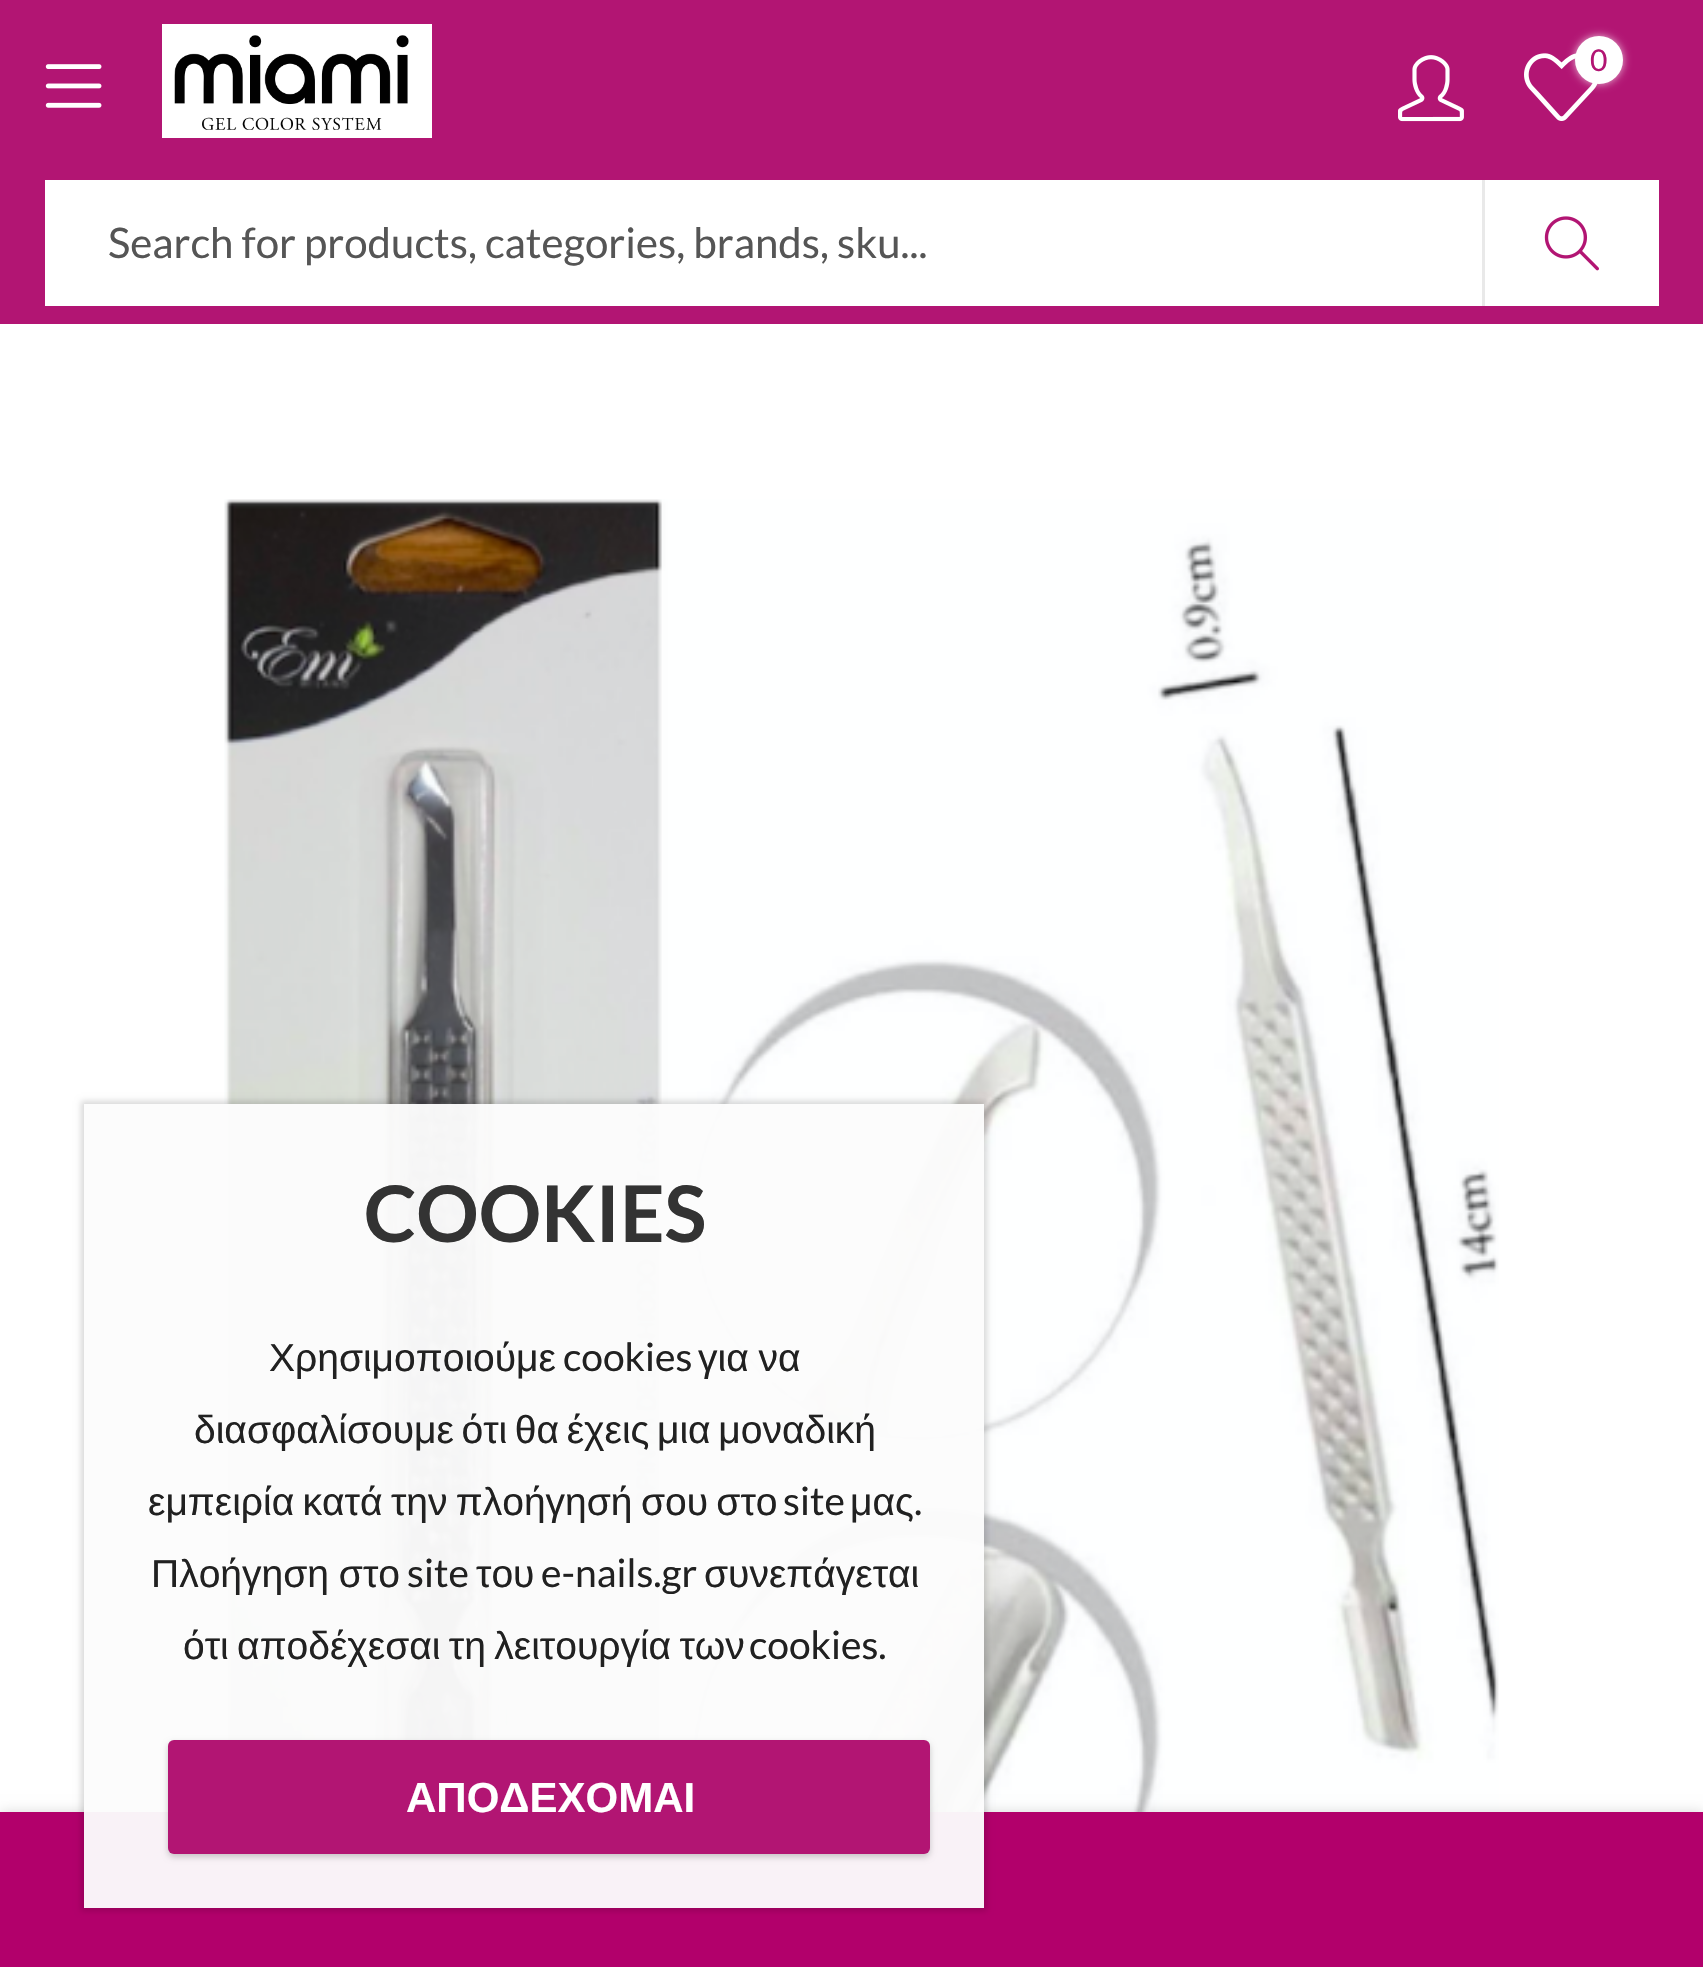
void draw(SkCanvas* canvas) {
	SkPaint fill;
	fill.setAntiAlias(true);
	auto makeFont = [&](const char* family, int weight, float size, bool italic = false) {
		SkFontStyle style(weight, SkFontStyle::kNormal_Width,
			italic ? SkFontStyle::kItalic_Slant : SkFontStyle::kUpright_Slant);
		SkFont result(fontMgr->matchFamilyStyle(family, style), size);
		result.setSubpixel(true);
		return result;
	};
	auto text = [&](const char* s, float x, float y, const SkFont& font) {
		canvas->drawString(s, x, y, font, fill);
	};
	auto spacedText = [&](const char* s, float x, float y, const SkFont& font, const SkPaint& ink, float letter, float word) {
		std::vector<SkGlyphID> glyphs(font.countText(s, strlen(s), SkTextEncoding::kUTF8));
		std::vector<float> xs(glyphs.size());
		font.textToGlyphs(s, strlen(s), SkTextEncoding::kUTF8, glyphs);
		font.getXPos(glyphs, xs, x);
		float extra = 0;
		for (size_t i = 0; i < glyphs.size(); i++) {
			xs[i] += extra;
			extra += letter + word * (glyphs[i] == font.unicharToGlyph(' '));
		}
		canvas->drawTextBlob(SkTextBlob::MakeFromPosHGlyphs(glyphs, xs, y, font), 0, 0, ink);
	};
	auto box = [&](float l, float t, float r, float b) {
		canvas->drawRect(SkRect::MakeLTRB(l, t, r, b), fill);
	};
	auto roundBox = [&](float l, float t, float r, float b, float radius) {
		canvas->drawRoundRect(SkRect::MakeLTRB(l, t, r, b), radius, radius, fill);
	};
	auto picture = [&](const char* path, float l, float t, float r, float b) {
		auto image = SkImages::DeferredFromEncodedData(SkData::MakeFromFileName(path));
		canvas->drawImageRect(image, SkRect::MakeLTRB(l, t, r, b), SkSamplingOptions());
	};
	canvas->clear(0xFFFFFFFF);
	fill.setColor(0xFFB21573);
	box(0, 0, 1703, 324);
	picture("image0.png", 45, 64, 102, 108);
	picture("image1.png", 162, 24, 432, 138);
	picture("image2.png", 1398, 55, 1464, 122);
	picture("image3.png", 1524, 53, 1598, 121);
	fill.setColor(0xB3FFFFFF);
	fill.setMaskFilter(SkMaskFilter::MakeBlur(kNormal_SkBlurStyle, 4.5f));
	canvas->drawRoundRect(SkRect::MakeLTRB(1575, 36, 1623, 84), 24, 24, fill);
	fill.setMaskFilter(nullptr);
	fill.setColor(0xFFFFFFFF);
	canvas->drawCircle(1599, 60, 24, fill);
	box(45, 180, 1482, 306);
	fill.setColor(0xFFE9E9E9);
	box(1482, 180, 1485, 306);
	fill.setColor(0xFFFFFFFF);
	box(1485, 180, 1659, 306);
	picture("image4.png", 1544, 216, 1599, 271);
	picture("image5.png", 224, 499, 1499, 1812);
	fill.setColor(0x26000000);
	fill.setMaskFilter(SkMaskFilter::MakeBlur(kNormal_SkBlurStyle, 6));
	canvas->drawRect(SkRect::MakeLTRB(0, 1812, 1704, 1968), fill);
	fill.setMaskFilter(nullptr);
	fill.setColor(0xFFB2006B);
	box(0, 1812, 1703, 1967);
	canvas->save();
	canvas->clipPath(SkPathBuilder(SkPathFillType::kEvenOdd).moveTo(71, 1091).lineTo(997, 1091).lineTo(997, 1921).lineTo(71, 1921).close().moveTo(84, 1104).lineTo(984, 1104).lineTo(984, 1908).lineTo(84, 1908).close().detach(), true);
	fill.setColor(0x26000000);
	fill.setMaskFilter(SkMaskFilter::MakeBlur(kNormal_SkBlurStyle, 3));
	canvas->drawRect(SkRect::MakeLTRB(81, 1101, 987, 1911), fill);
	fill.setMaskFilter(nullptr);
	canvas->restore();
	fill.setColor(0xF5FCFCFC);
	box(84, 1104, 984, 1908);
	fill.setColor(0x33000000);
	fill.setMaskFilter(SkMaskFilter::MakeBlur(kNormal_SkBlurStyle, 3));
	canvas->drawRoundRect(SkRect::MakeLTRB(168, 1743, 930, 1857), 6, 6, fill);
	fill.setMaskFilter(nullptr);
	fill.setColor(0xFFB21573);
	roundBox(168, 1740, 930, 1854, 6);
	auto font1 = makeFont("Lato", 400, 30);
	text("0", 1590, 71, font1);
	auto font2 = makeFont("Lato", 400, 42);
	fill.setColor(0xFF555555);
	text("Search for products, categories, brands, sku...", 108, 258, font2);
	auto font3 = makeFont("Lato", 700, 78);
	fill.setColor(0xFF333333);
	text("COOKIES", 364, 1242, font3);
	auto font4 = makeFont("Liberation Sans", 400, 39);
	fill.setColor(0xFF212121);
	text("Χρησιμοποιούμε", 269, 1371, font4);
	auto font5 = makeFont("Lato", 400, 39);
	text("cookies", 563, 1371, font5);
	spacedText("για να", 698, 1371, font4, fill, 0, -1);
	spacedText("διασφαλίσουμε ότι θα έχεις μια μοναδική", 194, 1443, font4, fill, 0, -3.25f);
	spacedText("εμπειρία κατά την πλοήγησή σου στο", 148, 1515, font4, fill, 0, -2.5f);
	text("site", 783, 1515, font5);
	text("μας", 850, 1515, font4);
	text(".", 914, 1515, font5);
	spacedText("Πλοήγηση στο", 151, 1587, font4, fill, 0, -1);
	text("site", 407, 1587, font5);
	text("του", 476, 1587, font4);
	text("e-nails.gr", 541, 1587, font5);
	text("συνεπάγεται", 704, 1587, font4);
	spacedText("ότι αποδέχεσαι τη λειτουργία των", 183, 1659, font4, fill, 0, -2.5f);
	text("cookies.", 749, 1659, font5);
	auto font6 = makeFont("Liberation Sans", 700, 42);
	fill.setColor(0xFFFFFFFF);
	text("ΑΠΟΔΕΧΟΜΑΙ", 406, 1812, font6);
}
